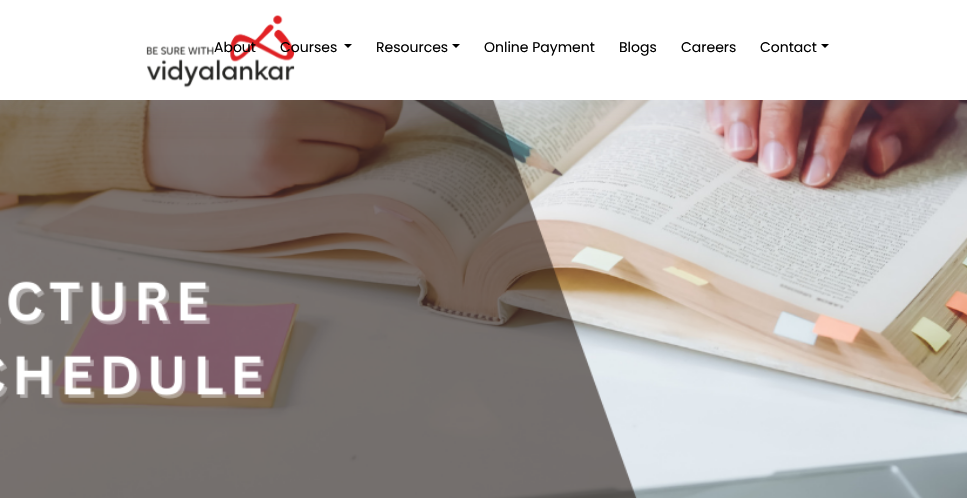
void draw(SkCanvas* canvas) {
	SkPaint fill;
	fill.setAntiAlias(true);
	auto makeFont = [&](const char* family, int weight, float size, bool italic = false) {
		SkFontStyle style(weight, SkFontStyle::kNormal_Width,
			italic ? SkFontStyle::kItalic_Slant : SkFontStyle::kUpright_Slant);
		SkFont result(fontMgr->matchFamilyStyle(family, style), size);
		result.setSubpixel(true);
		return result;
	};
	auto text = [&](const char* s, float x, float y, const SkFont& font) {
		canvas->drawString(s, x, y, font, fill);
	};
	auto box = [&](float l, float t, float r, float b) {
		canvas->drawRect(SkRect::MakeLTRB(l, t, r, b), fill);
	};
	auto picture = [&](const char* path, float l, float t, float r, float b) {
		auto image = SkImages::DeferredFromEncodedData(SkData::MakeFromFileName(path));
		canvas->drawImageRect(image, SkRect::MakeLTRB(l, t, r, b), SkSamplingOptions());
	};
	canvas->clear(0xFFFFFFFF);
	picture("image1.png", 0, 100, 967, 498);
	fill.setColor(0x268A9BA5);
	fill.setMaskFilter(SkMaskFilter::MakeBlur(kNormal_SkBlurStyle, 15));
	canvas->drawRect(SkRect::MakeLTRB(0, 10, 967, 110), fill);
	fill.setMaskFilter(nullptr);
	fill.setColor(0xFFFFFFFF);
	box(0, 0, 967, 100);
	picture("image0.png", 146, 15, 295, 88);
	fill.setColor(0xFF000000);
	canvas->drawPath(SkPathBuilder().moveTo(344, 44).lineTo(352, 44).lineTo(348, 48).close().detach(), fill);
	canvas->drawPath(SkPathBuilder().moveTo(452, 44).lineTo(460, 44).lineTo(456, 48).close().detach(), fill);
	canvas->drawPath(SkPathBuilder().moveTo(821, 44).lineTo(829, 44).lineTo(825, 48).close().detach(), fill);
	auto font1 = makeFont("Poppins", 400, 14);
	text("About", 214, 52, font1);
	text("Courses", 280, 52, font1);
	text("Resources", 376, 52, font1);
	text("Online Payment", 484, 52, font1);
	text("Blogs", 619, 52, font1);
	text("Careers", 681, 52, font1);
	text("Contact", 760, 52, font1);
}
